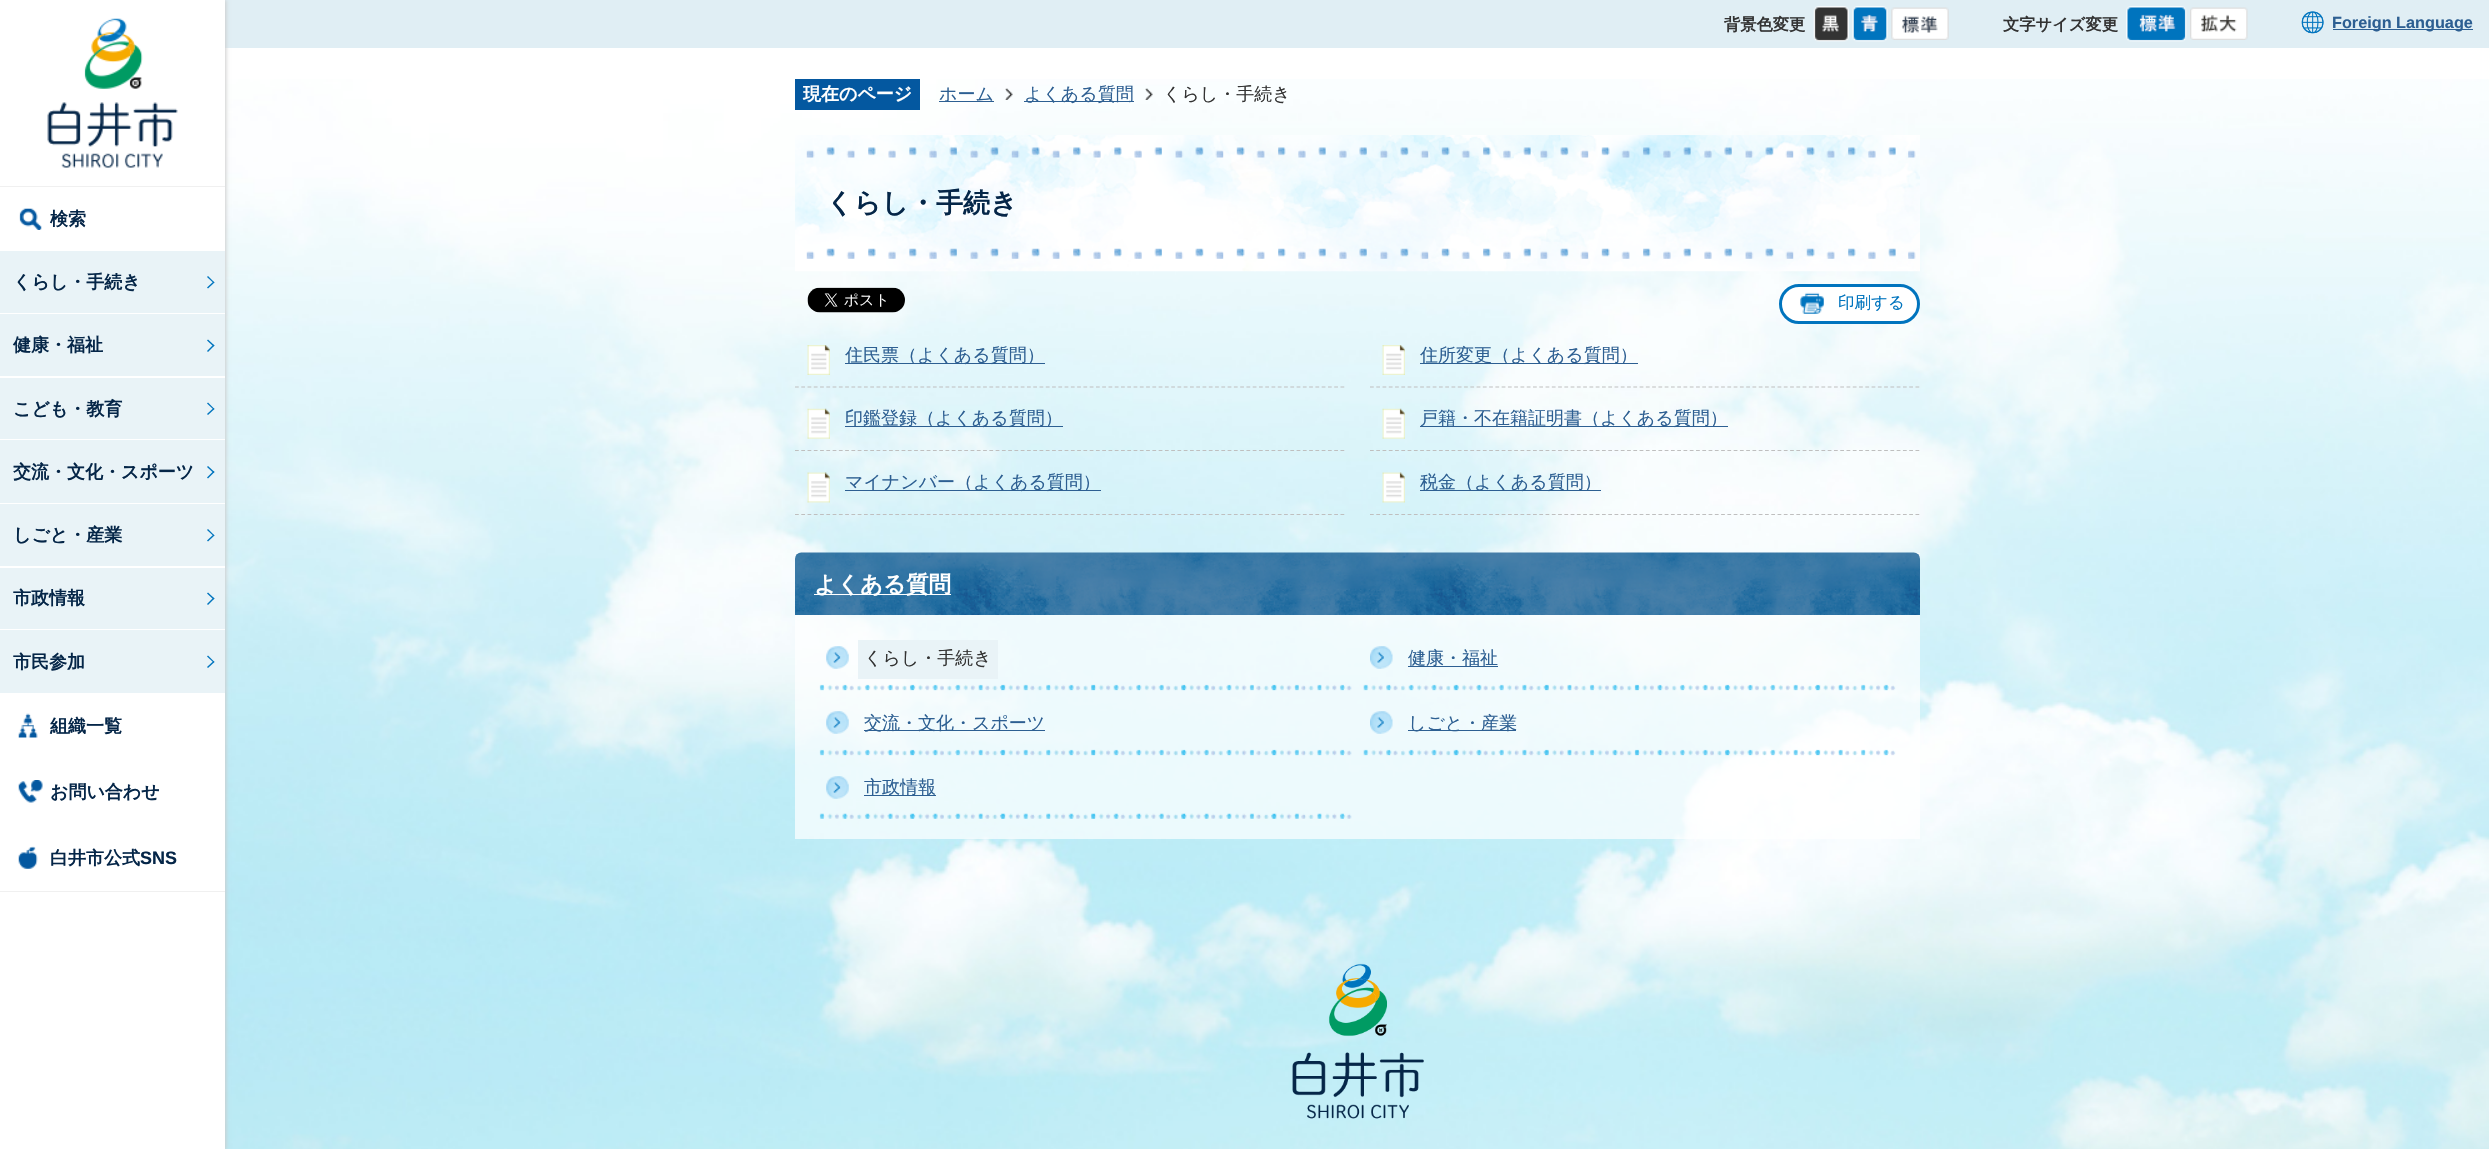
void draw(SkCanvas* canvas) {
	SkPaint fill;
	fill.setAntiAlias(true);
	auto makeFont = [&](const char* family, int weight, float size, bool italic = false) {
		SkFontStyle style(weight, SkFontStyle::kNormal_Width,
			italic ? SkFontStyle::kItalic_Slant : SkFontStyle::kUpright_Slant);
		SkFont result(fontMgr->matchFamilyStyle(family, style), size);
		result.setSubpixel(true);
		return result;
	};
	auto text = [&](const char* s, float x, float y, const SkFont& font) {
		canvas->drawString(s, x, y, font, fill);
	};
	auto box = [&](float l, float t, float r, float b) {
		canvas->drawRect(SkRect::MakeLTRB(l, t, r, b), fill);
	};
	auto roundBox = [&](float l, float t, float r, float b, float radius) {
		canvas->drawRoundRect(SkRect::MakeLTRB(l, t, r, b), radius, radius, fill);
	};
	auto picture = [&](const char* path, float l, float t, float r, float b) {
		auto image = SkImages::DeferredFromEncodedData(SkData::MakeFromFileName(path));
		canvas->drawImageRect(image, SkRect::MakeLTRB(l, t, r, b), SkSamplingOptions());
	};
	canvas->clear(0xFFFFFFFF);
	fill.setColor(0xFFE0EEF4);
	box(225, 0, 2489, 48);
	picture("image0.png", 1813, 6, 1849, 42);
	picture("image1.png", 1852, 6, 1888, 42);
	picture("image2.png", 1891, 7, 1949, 40);
	picture("image3.png", 2126, 6, 2187, 42);
	picture("image4.png", 2190, 7, 2248, 40);
	picture("image5.png", 2301, 11, 2324, 34);
	fill.setColor(0xFF2D5F92);
	box(2333, 29, 2473, 30);
	picture("image11.png", 225, 79, 2489, 1149);
	fill.setColor(0xFFCCCCCC);
	fill.setMaskFilter(SkMaskFilter::MakeBlur(kNormal_SkBlurStyle, 2));
	canvas->drawRect(SkRect::MakeLTRB(1, 0, 226, 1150), fill);
	fill.setMaskFilter(nullptr);
	fill.setColor(0xFFFFFFFF);
	box(0, 0, 225, 1149);
	fill.setColor(0xFFF0F0F0);
	box(0, 186, 225, 187);
	picture("image6.png", 47, 18, 178, 168);
	picture("image7.png", 19, 208, 42, 230);
	fill.setColor(0xFFE9F3F7);
	box(0, 251, 225, 313);
	fill.setColor(0xFF0074BE);
	canvas->drawPath(SkPathBuilder().moveTo(208, 276).lineTo(214.5f, 282.5f).lineTo(213.5f, 283).lineTo(207, 277).close().detach(), fill);
	canvas->drawPath(SkPathBuilder().moveTo(213.5f, 281.5f).lineTo(214.5f, 282.5f).lineTo(208, 288.5f).lineTo(207, 287.5f).close().detach(), fill);
	fill.setColor(0xFFE9F3F7);
	box(0, 314, 225, 376);
	fill.setColor(0xFF0074BE);
	canvas->drawPath(SkPathBuilder().moveTo(208, 339.5f).lineTo(214.5f, 345.5f).lineTo(213.5f, 346.5f).lineTo(207, 340.5f).close().detach(), fill);
	canvas->drawPath(SkPathBuilder().moveTo(213.5f, 344.5f).lineTo(214.5f, 345.5f).lineTo(208, 352).lineTo(207, 351).close().detach(), fill);
	fill.setColor(0xFFE9F3F7);
	box(0, 378, 225, 439);
	fill.setColor(0xFF0074BE);
	canvas->drawPath(SkPathBuilder().moveTo(208, 402.5f).lineTo(214.5f, 409).lineTo(213.5f, 409.5f).lineTo(207, 403.5f).close().detach(), fill);
	canvas->drawPath(SkPathBuilder().moveTo(213.5f, 408).lineTo(214.5f, 409).lineTo(208, 415).lineTo(207, 414).close().detach(), fill);
	fill.setColor(0xFFE9F3F7);
	box(0, 440, 225, 503);
	fill.setColor(0xFF0074BE);
	canvas->drawPath(SkPathBuilder().moveTo(208, 466).lineTo(214.5f, 472).lineTo(213.5f, 473).lineTo(207, 467).close().detach(), fill);
	canvas->drawPath(SkPathBuilder().moveTo(213.5f, 471).lineTo(214.5f, 472).lineTo(208, 478.5f).lineTo(207, 477.5f).close().detach(), fill);
	fill.setColor(0xFFE9F3F7);
	box(0, 504, 225, 566);
	fill.setColor(0xFF0074BE);
	canvas->drawPath(SkPathBuilder().moveTo(208, 529).lineTo(214.5f, 535.5f).lineTo(213.5f, 536).lineTo(207, 530).close().detach(), fill);
	canvas->drawPath(SkPathBuilder().moveTo(213.5f, 534.5f).lineTo(214.5f, 535.5f).lineTo(208, 541.5f).lineTo(207, 540.5f).close().detach(), fill);
	fill.setColor(0xFFE9F3F7);
	box(0, 568, 225, 629);
	fill.setColor(0xFF0074BE);
	canvas->drawPath(SkPathBuilder().moveTo(208, 592.5f).lineTo(214.5f, 598.5f).lineTo(213.5f, 599.5f).lineTo(207, 593.5f).close().detach(), fill);
	canvas->drawPath(SkPathBuilder().moveTo(213.5f, 597.5f).lineTo(214.5f, 598.5f).lineTo(208, 605).lineTo(207, 604).close().detach(), fill);
	fill.setColor(0xFFE9F3F7);
	box(0, 630, 225, 693);
	fill.setColor(0xFF0074BE);
	canvas->drawPath(SkPathBuilder().moveTo(208, 655.5f).lineTo(214.5f, 662).lineTo(213.5f, 662.5f).lineTo(207, 656.5f).close().detach(), fill);
	canvas->drawPath(SkPathBuilder().moveTo(213.5f, 661).lineTo(214.5f, 662).lineTo(208, 668).lineTo(207, 667).close().detach(), fill);
	fill.setColor(0xFFF0F0F0);
	box(0, 891, 225, 892);
	picture("image8.png", 18, 713, 38, 738);
	picture("image9.png", 18, 780, 43, 803);
	picture("image10.png", 18, 846, 38, 869);
	fill.setColor(0xFF0458A0);
	box(795, 79, 920, 110);
	fill.setColor(0xFF2D5F92);
	box(939, 101, 994, 102);
	picture("image12.png", 1005, 88, 1013, 100);
	box(1024, 101, 1134, 102);
	picture("image13.png", 1145, 88, 1153, 100);
	picture("image14.png", 795, 135, 1920, 272);
	picture("image15.png", 807, 287, 905, 313);
	fill.setColor(0xFFFFFFFF);
	roundBox(1779, 284, 1920, 324, 20);
	picture("image16.png", 1800, 292, 1824, 314);
	fill.setStyle(SkPaint::kStroke_Style);
	fill.setStrokeWidth(3);
	fill.setColor(0xFF0074BE);
	canvas->drawRoundRect(SkRect::MakeLTRB(1780.5f, 285.5f, 1918.5f, 322.5f), 18.5f, 18.5f, fill);
	picture("image17.png", 807, 345, 830, 375);
	fill.setStrokeWidth(1.2f);
	fill.setColor(0xFFBFBFBF);
	fill.setPathEffect(SkDashPathEffect::Make({{3.75f, 2.52f}}, 0));
	canvas->drawPath(SkPathBuilder().moveTo(795, 387).lineTo(1345, 387).detach(), fill);
	fill.setPathEffect(nullptr);
	fill.setStyle(SkPaint::kFill_Style);
	fill.setColor(0xFF2D5F92);
	box(845, 363, 1045, 364);
	picture("image18.png", 1382, 345, 1405, 375);
	fill.setStyle(SkPaint::kStroke_Style);
	fill.setColor(0xFFBFBFBF);
	fill.setPathEffect(SkDashPathEffect::Make({{3.75f, 2.52f}}, 0));
	canvas->drawPath(SkPathBuilder().moveTo(1370, 387).lineTo(1920, 387).detach(), fill);
	fill.setPathEffect(nullptr);
	fill.setStyle(SkPaint::kFill_Style);
	fill.setColor(0xFF2D5F92);
	box(1420, 363, 1638, 364);
	picture("image19.png", 807, 408, 830, 439);
	fill.setStyle(SkPaint::kStroke_Style);
	fill.setColor(0xFFBFBFBF);
	fill.setPathEffect(SkDashPathEffect::Make({{3.75f, 2.52f}}, 0));
	canvas->drawPath(SkPathBuilder().moveTo(795, 450.5f).lineTo(1345, 450.5f).detach(), fill);
	fill.setPathEffect(nullptr);
	fill.setStyle(SkPaint::kFill_Style);
	fill.setColor(0xFF2D5F92);
	box(845, 426, 1063, 427);
	picture("image20.png", 1382, 408, 1405, 439);
	fill.setStyle(SkPaint::kStroke_Style);
	fill.setColor(0xFFBFBFBF);
	fill.setPathEffect(SkDashPathEffect::Make({{3.75f, 2.52f}}, 0));
	canvas->drawPath(SkPathBuilder().moveTo(1370, 450.5f).lineTo(1920, 450.5f).detach(), fill);
	fill.setPathEffect(nullptr);
	fill.setStyle(SkPaint::kFill_Style);
	fill.setColor(0xFF2D5F92);
	box(1420, 426, 1728, 427);
	picture("image21.png", 807, 472, 830, 503);
	fill.setStyle(SkPaint::kStroke_Style);
	fill.setColor(0xFFBFBFBF);
	fill.setPathEffect(SkDashPathEffect::Make({{3.75f, 2.52f}}, 0));
	canvas->drawPath(SkPathBuilder().moveTo(795, 514.5f).lineTo(1345, 514.5f).detach(), fill);
	fill.setPathEffect(nullptr);
	fill.setStyle(SkPaint::kFill_Style);
	fill.setColor(0xFF2D5F92);
	box(845, 490, 1101, 491);
	picture("image22.png", 1382, 472, 1405, 503);
	fill.setStyle(SkPaint::kStroke_Style);
	fill.setColor(0xFFBFBFBF);
	fill.setPathEffect(SkDashPathEffect::Make({{3.75f, 2.52f}}, 0));
	canvas->drawPath(SkPathBuilder().moveTo(1370, 514.5f).lineTo(1920, 514.5f).detach(), fill);
	fill.setPathEffect(nullptr);
	fill.setStyle(SkPaint::kFill_Style);
	fill.setColor(0xFF2D5F92);
	box(1420, 490, 1601, 491);
	fill.setColor(0xB3FFFFFF);
	box(795, 553, 1920, 839);
	picture("image23.png", 795, 552, 1920, 615);
	fill.setColor(0xFFFFFFFF);
	box(814, 594, 951, 595);
	picture("image24.png", 819, 646, 1352, 691);
	fill.setColor(0xFFE9F3F7);
	box(858, 640, 998, 679);
	picture("image25.png", 1363, 646, 1896, 691);
	fill.setColor(0xFF2D5F92);
	box(1408, 666, 1498, 667);
	picture("image26.png", 819, 711, 1352, 756);
	box(864, 730, 1045, 731);
	picture("image27.png", 1363, 711, 1896, 756);
	box(1408, 730, 1516, 731);
	picture("image28.png", 819, 776, 1352, 819);
	box(864, 795, 936, 796);
	picture("image29.png", 1292, 963, 1424, 1119);
	auto font1 = makeFont("WenQuanYi Zen Hei", 700, 16.25f);
	fill.setColor(0xFF333333);
	text("背景色変更", 1724, 30, font1);
	text("文字サイズ変更", 2003, 30, font1);
	auto font2 = makeFont("Liberation Sans", 700, 16.25f);
	fill.setColor(0xFF2D5F92);
	text("Foreign Language", 2332, 28, font2);
	auto font3 = makeFont("WenQuanYi Zen Hei", 700, 18);
	fill.setColor(0xFF052648);
	text("検索", 50, 225, font3);
	text("くらし・手続き", 13, 288, font3);
	text("健康・福祉", 13, 351, font3);
	text("こども・教育", 13, 415, font3);
	text("交流・文化・スポーツ", 13, 478, font3);
	text("しごと・産業", 13, 541, font3);
	text("市政情報", 13, 604, font3);
	text("市民参加", 13, 668, font3);
	text("組織一覧", 50, 732, font3);
	text("お問い合わせ", 50, 798, font3);
	text("白井市公式", 50, 864, font3);
	auto font4 = makeFont("Liberation Sans", 700, 18);
	text("SNS", 140, 864, font4);
	fill.setColor(0xFFFFFFFF);
	text("現在のページ", 803, 100, font3);
	auto font5 = makeFont("WenQuanYi Zen Hei", 500, 18);
	fill.setColor(0xFF2D5F92);
	text("ホーム", 939, 100, font5);
	text("よくある質問", 1024, 100, font5);
	fill.setColor(0xFF333333);
	text("くらし・手続き", 1163, 100, font5);
	auto font6 = makeFont("WenQuanYi Zen Hei", 700, 27);
	fill.setColor(0xFF052648);
	text("くらし・手続き", 826, 212, font6);
	auto font7 = makeFont("WenQuanYi Zen Hei", 500, 16.5f);
	fill.setColor(0xFF0074BE);
	text("印刷する", 1838, 308, font7);
	fill.setColor(0xFF2D5F92);
	text("住民票（よくある質問）", 845, 361, font5);
	text("住所変更（よくある質問）", 1420, 361, font5);
	text("印鑑登録（よくある質問）", 845, 424, font5);
	text("戸籍・不在籍証明書（よくある質問）", 1420, 424, font5);
	text("マイナンバー（よくある質問）", 845, 488, font5);
	text("税金（よくある質問）", 1420, 488, font5);
	auto font8 = makeFont("WenQuanYi Zen Hei", 700, 22.5f);
	fill.setColor(0xFFFFFFFF);
	text("よくある質問", 814, 592, font8);
	fill.setColor(0xFF333333);
	text("くらし・手続き", 864, 664, font5);
	fill.setColor(0xFF2D5F92);
	text("健康・福祉", 1408, 664, font5);
	text("交流・文化・スポーツ", 864, 729, font5);
	text("しごと・産業", 1408, 729, font5);
	text("市政情報", 864, 793, font5);
}
